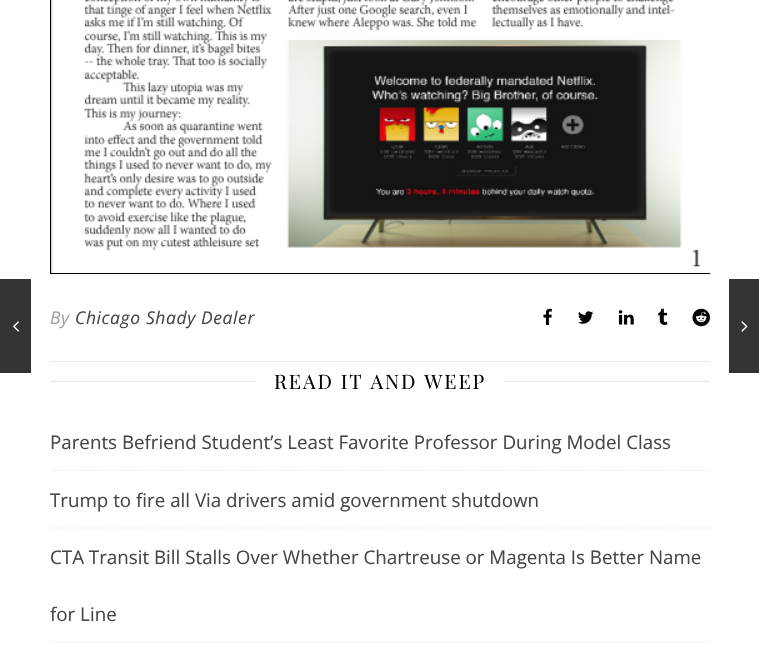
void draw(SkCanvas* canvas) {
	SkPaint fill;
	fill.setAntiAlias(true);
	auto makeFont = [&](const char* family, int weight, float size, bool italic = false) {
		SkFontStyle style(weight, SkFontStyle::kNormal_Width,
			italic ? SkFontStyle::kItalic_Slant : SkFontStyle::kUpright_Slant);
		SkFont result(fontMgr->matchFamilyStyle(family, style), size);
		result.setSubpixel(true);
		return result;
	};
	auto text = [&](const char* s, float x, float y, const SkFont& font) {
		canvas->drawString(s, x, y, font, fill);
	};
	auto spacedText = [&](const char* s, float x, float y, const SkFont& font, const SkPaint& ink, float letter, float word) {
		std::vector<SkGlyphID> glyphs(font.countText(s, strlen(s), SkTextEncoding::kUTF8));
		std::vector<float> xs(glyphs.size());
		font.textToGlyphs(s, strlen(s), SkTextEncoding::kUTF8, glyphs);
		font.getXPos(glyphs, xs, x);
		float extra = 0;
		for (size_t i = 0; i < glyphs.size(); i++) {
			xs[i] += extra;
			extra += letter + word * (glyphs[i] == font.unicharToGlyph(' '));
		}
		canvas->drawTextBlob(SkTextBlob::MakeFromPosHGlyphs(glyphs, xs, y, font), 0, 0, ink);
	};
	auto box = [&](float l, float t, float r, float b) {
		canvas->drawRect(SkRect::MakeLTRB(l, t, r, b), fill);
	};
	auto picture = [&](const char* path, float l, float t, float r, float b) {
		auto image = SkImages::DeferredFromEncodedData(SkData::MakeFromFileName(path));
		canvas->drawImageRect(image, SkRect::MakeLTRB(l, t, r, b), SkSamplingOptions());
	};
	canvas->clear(0xFFFFFFFF);
	fill.setColor(0xFF333333);
	box(0, 279, 31, 373);
	picture("image0.png", 13, 321, 19, 332);
	fill.setColor(0xFFD3D3D3);
	box(51, 0, 53, 273);
	canvas->save();
	canvas->clipRect(SkRect::MakeLTRB(50, 0, 710, 274));
	fill.setStyle(SkPaint::kStroke_Style);
	fill.setStrokeWidth(1);
	fill.setColor(0xFF000000);
	canvas->drawRect(SkRect::MakeLTRB(50.5f, -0.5f, 712.5f, 273.5f), fill);
	canvas->restore();
	picture("image1.png", 52, 0, 702, 273);
	fill.setStyle(SkPaint::kFill_Style);
	fill.setColor(0xFFE8E8E8);
	box(50, 361, 710, 362);
	picture("image2.png", 543, 308, 552, 325);
	picture("image3.png", 578, 311, 594, 324);
	picture("image4.png", 618, 310, 634, 325);
	picture("image5.png", 658, 308, 668, 325);
	picture("image6.png", 692, 308, 710, 327);
	fill.setColor(0xFF333333);
	box(729, 279, 759, 373);
	picture("image7.png", 741, 321, 748, 332);
	fill.setColor(0xFFE8E8E8);
	box(50, 381, 255, 382);
	box(505, 381, 710, 382);
	fill.setStyle(SkPaint::kStroke_Style);
	fill.setStrokeWidth(1.2f);
	fill.setPathEffect(SkDashPathEffect::Make({{1.25f, 1.25f}}, 0));
	canvas->drawPath(SkPathBuilder().moveTo(50, 470.5f).lineTo(710, 470.5f).detach(), fill);
	fill.setPathEffect(nullptr);
	fill.setPathEffect(SkDashPathEffect::Make({{1.25f, 1.25f}}, 0));
	canvas->drawPath(SkPathBuilder().moveTo(50, 528).lineTo(710, 528).detach(), fill);
	fill.setPathEffect(nullptr);
	fill.setPathEffect(SkDashPathEffect::Make({{1.25f, 1.25f}}, 0));
	canvas->drawPath(SkPathBuilder().moveTo(50, 642).lineTo(710, 642).detach(), fill);
	fill.setPathEffect(nullptr);
	auto font1 = makeFont("Open Sans", 400, 17.5f, true);
	fill.setStyle(SkPaint::kFill_Style);
	fill.setColor(0xFFA1A1A1);
	spacedText("By", 50, 324, font1, fill, 0.6f, 0);
	fill.setColor(0xFF464646);
	spacedText("Chicago Shady Dealer", 75, 324, font1, fill, 0.6f, 0);
	auto font2 = makeFont("Playfair Display", 400, 20);
	fill.setColor(0xFF030303);
	spacedText("READ IT AND WEEP", 274, 389, font2, fill, 1.9f, 0);
	auto font3 = makeFont("Open Sans", 400, 18.75f);
	fill.setColor(0xFF464646);
	text("Parents Befriend Student’s Least Favorite Professor During Model Class", 50, 449, font3);
	text("Trump to fire all Via drivers amid government shutdown", 50, 507, font3);
	text("CTA Transit Bill Stalls Over Whether Chartreuse or Magenta Is Better Name", 50, 564, font3);
	text("for Line", 50, 621, font3);
}
